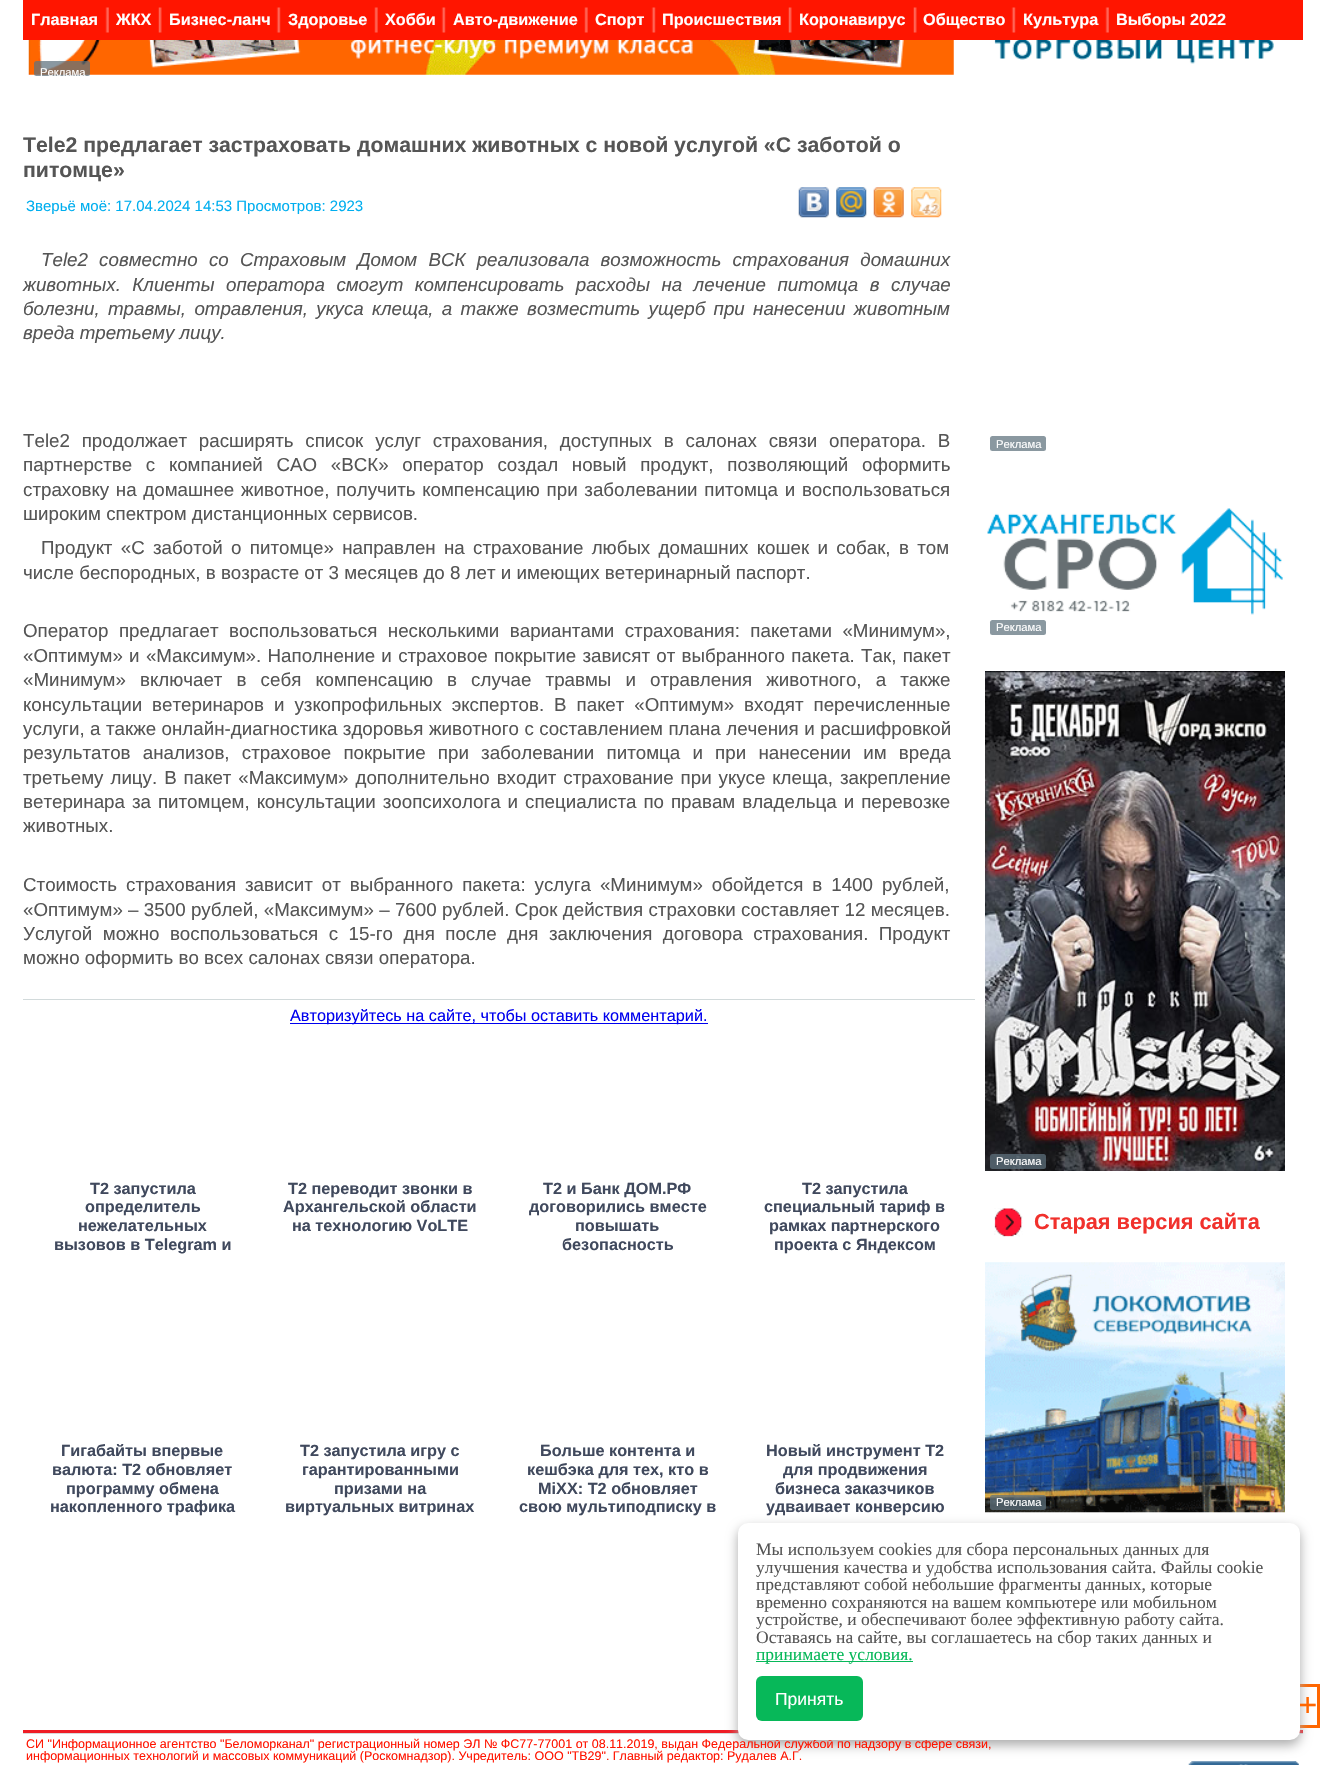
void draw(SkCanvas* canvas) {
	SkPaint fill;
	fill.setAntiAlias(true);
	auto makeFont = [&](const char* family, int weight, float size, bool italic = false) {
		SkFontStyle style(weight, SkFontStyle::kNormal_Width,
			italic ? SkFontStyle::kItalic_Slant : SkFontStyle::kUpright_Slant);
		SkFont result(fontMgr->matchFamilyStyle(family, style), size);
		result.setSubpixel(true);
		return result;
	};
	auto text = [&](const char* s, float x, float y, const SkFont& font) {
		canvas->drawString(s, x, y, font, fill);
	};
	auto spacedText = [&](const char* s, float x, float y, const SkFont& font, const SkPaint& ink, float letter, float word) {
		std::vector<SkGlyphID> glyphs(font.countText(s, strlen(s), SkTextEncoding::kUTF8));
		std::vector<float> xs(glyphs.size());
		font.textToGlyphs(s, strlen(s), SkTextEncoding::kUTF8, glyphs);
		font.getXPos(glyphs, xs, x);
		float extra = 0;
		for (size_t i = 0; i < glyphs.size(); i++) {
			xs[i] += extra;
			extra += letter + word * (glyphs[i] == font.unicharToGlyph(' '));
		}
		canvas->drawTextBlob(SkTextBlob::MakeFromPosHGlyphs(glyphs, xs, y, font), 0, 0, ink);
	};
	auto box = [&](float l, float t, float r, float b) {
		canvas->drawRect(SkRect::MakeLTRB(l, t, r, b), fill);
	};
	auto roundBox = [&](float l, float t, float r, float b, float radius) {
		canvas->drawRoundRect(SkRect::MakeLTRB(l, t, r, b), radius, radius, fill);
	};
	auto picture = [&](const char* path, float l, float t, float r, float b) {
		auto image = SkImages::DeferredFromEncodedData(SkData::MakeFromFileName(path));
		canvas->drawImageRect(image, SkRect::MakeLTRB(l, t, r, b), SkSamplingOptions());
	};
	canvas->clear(0xFFFFFFFF);
	fill.setColor(0xFFFF1500);
	box(23, 0, 1303, 40);
	picture("image0.png", 105, 7, 109, 33);
	picture("image1.png", 158, 7, 162, 33);
	picture("image2.png", 276, 7, 281, 33);
	picture("image3.png", 374, 7, 378, 33);
	picture("image2.png", 441, 7, 446, 33);
	picture("image3.png", 584, 7, 588, 33);
	picture("image2.png", 651, 7, 656, 33);
	picture("image1.png", 788, 7, 792, 33);
	picture("image1.png", 913, 7, 917, 33);
	picture("image2.png", 1011, 7, 1016, 33);
	picture("image0.png", 1105, 7, 1109, 33);
	picture("image4.png", 28, 40, 954, 75);
	fill.setColor(0xBA5F727E);
	roundBox(34, 61, 90, 76, 2.5f);
	picture("image5.png", 798, 187, 829, 218);
	picture("image6.png", 836, 187, 867, 218);
	picture("image7.png", 873, 187, 904, 218);
	picture("image8.png", 911, 187, 942, 218);
	fill.setColor(0xFFD2DADB);
	box(23, 999, 975, 1000);
	fill.setColor(0xFF0000EE);
	box(290, 1023, 708, 1024);
	picture("image9.png", 994, 40, 1274, 64);
	fill.setColor(0xFF8A98A0);
	roundBox(990, 436, 1046, 451, 2.5f);
	picture("image10.png", 987, 508, 1283, 615);
	roundBox(990, 620, 1046, 635, 2.5f);
	picture("image11.png", 985, 671, 1285, 1171);
	fill.setColor(0xBA5F727E);
	roundBox(990, 1154, 1046, 1169, 2.5f);
	picture("image12.png", 994, 1208, 1023, 1237);
	picture("image13.png", 985, 1262, 1285, 1513);
	roundBox(990, 1495, 1046, 1510, 2.5f);
	fill.setColor(0xFFEF1C25);
	box(23, 1730, 1303, 1733);
	fill.setColor(0xFFD9D9D9);
	box(23, 1733, 1303, 1734);
	picture("image14.png", 1188, 1761, 1299, 1765);
	fill.setStyle(SkPaint::kStroke_Style);
	fill.setStrokeWidth(3);
	fill.setColor(0xFFFF6600);
	canvas->drawRect(SkRect::MakeLTRB(1260.5f, 1685.5f, 1318.5f, 1726.5f), fill);
	fill.setStyle(SkPaint::kFill_Style);
	fill.setColor(0xFFAAAAAA);
	fill.setMaskFilter(SkMaskFilter::MakeBlur(kNormal_SkBlurStyle, 6));
	canvas->drawRoundRect(SkRect::MakeLTRB(738, 1528, 1300, 1745), 10, 10, fill);
	fill.setMaskFilter(nullptr);
	auto font1 = makeFont("Liberation Sans", 700, 16.25f);
	fill.setColor(0xFFFFFFFF);
	text("Главная", 31, 25, font1);
	text("ЖКХ", 116, 25, font1);
	text("Бизнес-ланч", 169, 25, font1);
	text("Здоровье", 288, 25, font1);
	text("Хобби", 385, 25, font1);
	text("Авто-движение", 453, 25, font1);
	text("Спорт", 595, 25, font1);
	text("Происшествия", 662, 25, font1);
	text("Коронавирус", 799, 25, font1);
	text("Общество", 923, 25, font1);
	text("Культура", 1023, 25, font1);
	text("Выборы 2022", 1116, 25, font1);
	auto font2 = makeFont("Liberation Sans", 400, 11.25f);
	text("Реклама", 40, 76, font2);
	auto font3 = makeFont("Liberation Sans", 700, 21.25f);
	fill.setColor(0xFF555555);
	text("Tele2 предлагает застраховать домашних животных с новой услугой «С заботой о", 23, 152, font3);
	text("питомце»", 23, 177, font3);
	auto font4 = makeFont("Liberation Sans", 400, 15);
	fill.setColor(0xFF00AEEF);
	text("Зверьё моё: 17.04.2024 14:53 Просмотров: 2923", 26, 211, font4);
	auto font5 = makeFont("Liberation Sans", 400, 18.75f, true);
	fill.setColor(0xFF555555);
	spacedText("Tele2 совместно со Страховым Домом ВСК реализовала возможность страхования домашних", 41, 266, font5, fill, 0, 6);
	spacedText("животных. Клиенты оператора смогут компенсировать расходы на лечение питомца в случае", 23, 291, font5, fill, 0, 6.25f);
	spacedText("болезни, травмы, отравления, укуса клеща, а также возместить ущерб при нанесении животным", 23, 315, font5, fill, 0, 3.1f);
	text("вреда третьему лицу.", 23, 339, font5);
	auto font6 = makeFont("Liberation Sans", 400, 18.75f);
	spacedText("Tele2 продолжает расширять список услуг страхования, доступных в салонах связи оператора. В", 23, 447, font6, fill, 0, 6.6f);
	spacedText("партнерстве с компанией САО «ВСК» оператор создал новый продукт, позволяющий оформить", 23, 471, font6, fill, 0, 8.5f);
	spacedText("страховку на домашнее животное, получить компенсацию при заболевании питомца и воспользоваться", 23, 496, font6, fill, 0, 1.5f);
	text("широким спектром дистанционных сервисов.", 23, 520, font6);
	spacedText("Продукт «С заботой о питомце» направлен на страхование любых домашних кошек и собак, в том", 41, 554, font6, fill, 0, 3.1f);
	text("числе беспородных, в возрасте от 3 месяцев до 8 лет и имеющих ветеринарный паспорт.", 23, 579, font6);
	spacedText("Оператор предлагает воспользоваться несколькими вариантами страхования: пакетами «Минимум»,", 23, 637, font6, fill, 0, 5.25f);
	spacedText("«Оптимум» и «Максимум». Наполнение и страховое покрытие зависят от выбранного пакета. Так, пакет", 23, 662, font6, fill, 0, 1.1f);
	spacedText("«Минимум» включает в себя компенсацию в случае травмы и отравления животного, а также", 23, 686, font6, fill, 0, 8.9f);
	spacedText("консультации ветеринаров и узкопрофильных экспертов. В пакет «Оптимум» входят перечисленные", 23, 711, font6, fill, 0, 4.75f);
	spacedText("услуги, а также онлайн-диагностика здоровья животного с составлением плана лечения и расшифровкой", 23, 735, font6, fill, 0, 0.25f);
	spacedText("результатов анализов, страховое покрытие при заболевании питомца и при нанесении им вреда", 23, 759, font6, fill, 0, 7);
	spacedText("третьему лицу. В пакет «Максимум» дополнительно входит страхование при укусе клеща, закрепление", 23, 784, font6, fill, 0, 1.75f);
	spacedText("ветеринара за питомцем, консультации зоопсихолога и специалиста по правам владельца и перевозке", 23, 808, font6, fill, 0, 1.75f);
	text("животных.", 23, 832, font6);
	spacedText("Стоимость страхования зависит от выбранного пакета: услуга «Минимум» обойдется в 1400 рублей,", 23, 891, font6, fill, 0, 3.75f);
	spacedText("«Оптимум» – 3500 рублей, «Максимум» – 7600 рублей. Срок действия страховки составляет 12 месяцев.", 23, 916, font6, fill, 0, 0.1f);
	spacedText("Услугой можно воспользоваться с 15-го дня после дня заключения договора страхования. Продукт", 23, 940, font6, fill, 0, 5.25f);
	text("можно оформить во всех салонах связи оператора.", 23, 964, font6);
	auto font7 = makeFont("Liberation Sans", 400, 16.25f);
	fill.setColor(0xFF0000EE);
	text("Авторизуйтесь на сайте, чтобы оставить комментарий.", 290, 1021, font7);
	fill.setColor(0xFF40495D);
	text("Т2 запустила", 90, 1194, font1);
	text("определитель", 85, 1212, font1);
	text("нежелательных", 78, 1231, font1);
	text("вызовов в Telegram и", 54, 1250, font1);
	text("T2 переводит звонки в", 288, 1194, font1);
	text("Архангельской области", 283, 1212, font1);
	text("на технологию VoLTE", 292, 1231, font1);
	text("T2 и Банк ДОМ.РФ", 543, 1194, font1);
	text("договорились вместе", 529, 1212, font1);
	text("повышать", 575, 1231, font1);
	text("безопасность", 562, 1250, font1);
	text("Т2 запустила", 802, 1194, font1);
	text("специальный тариф в", 764, 1212, font1);
	text("рамках партнерского", 769, 1231, font1);
	text("проекта с Яндексом", 774, 1250, font1);
	text("Гигабайты впервые", 61, 1456, font1);
	text("валюта: T2 обновляет", 52, 1475, font1);
	text("программу обмена", 66, 1494, font1);
	text("накопленного трафика", 50, 1512, font1);
	text("Т2 запустила игру с", 300, 1456, font1);
	text("гарантированными", 302, 1475, font1);
	text("призами на", 334, 1494, font1);
	text("виртуальных витринах", 285, 1512, font1);
	text("Больше контента и", 540, 1456, font1);
	text("кешбэка для тех, кто в", 527, 1475, font1);
	text("MiXX: T2 обновляет", 538, 1494, font1);
	text("свою мультиподписку в", 519, 1512, font1);
	text("Новый инструмент T2", 766, 1456, font1);
	text("для продвижения", 783, 1475, font1);
	text("бизнеса заказчиков", 775, 1494, font1);
	text("удваивает конверсию", 766, 1512, font1);
	fill.setColor(0xFFFFFFFF);
	text("Реклама", 996, 448, font2);
	text("Реклама", 996, 631, font2);
	text("Реклама", 996, 1165, font2);
	auto font8 = makeFont("Liberation Sans", 700, 21.75f);
	fill.setColor(0xFFF1312C);
	text("Старая версия сайта", 1034, 1229, font8);
	fill.setColor(0xFFFFFFFF);
	text("Реклама", 996, 1506, font2);
	auto font9 = makeFont("Liberation Sans", 400, 12.5f);
	fill.setColor(0xFFFF1400);
	text("СИ \"Информационное агентство \"Беломорканал\" регистрационный номер ЭЛ № ФС77-77001 от 08.11.2019, выдан Федеральной службой по надзору в сфере связи,", 26, 1748, font9);
	text("информационных технологий и массовых коммуникаций (Роскомнадзор). Учредитель: ООО \"ТВ29\". Главный редактор: Рудалев А.Г.", 26, 1760, font9);
	auto font10 = makeFont("Liberation Sans", 400, 33);
	fill.setColor(0xFFFF6600);
	text("+", 1298, 1716, font10);
	fill.setColor(0xFFFFFFFF);
	roundBox(738, 1523, 1300, 1740, 10);
	fill.setColor(0xFF07B859);
	roundBox(756, 1676, 863, 1721, 6);
	auto font11 = makeFont("Liberation Sans", 400, 17.5f);
	fill.setColor(0xFFFFFFFF);
	text("Принять", 775, 1705, font11);
	fill.setColor(0xFF07B859);
	box(756, 1661, 913, 1662);
	auto font12 = makeFont("Liberation Serif", 400, 17.5f);
	text("принимаете условия.", 756, 1660, font12);
	fill.setColor(0xFF555555);
	text("Оставаясь на сайте, вы соглашаетесь на сбор таких данных и", 756, 1643, font12);
	text("устройстве, и обеспечивают более эффективную работу сайта.", 756, 1625, font12);
	text("временно сохраняются на вашем компьютере или мобильном", 756, 1608, font12);
	text("представляют собой небольшие фрагменты данных, которые", 756, 1590, font12);
	text("улучшения качества и удобства использования сайта. Файлы cookie", 756, 1573, font12);
	text("Мы используем cookies для сбора персональных данных для", 756, 1555, font12);
}
